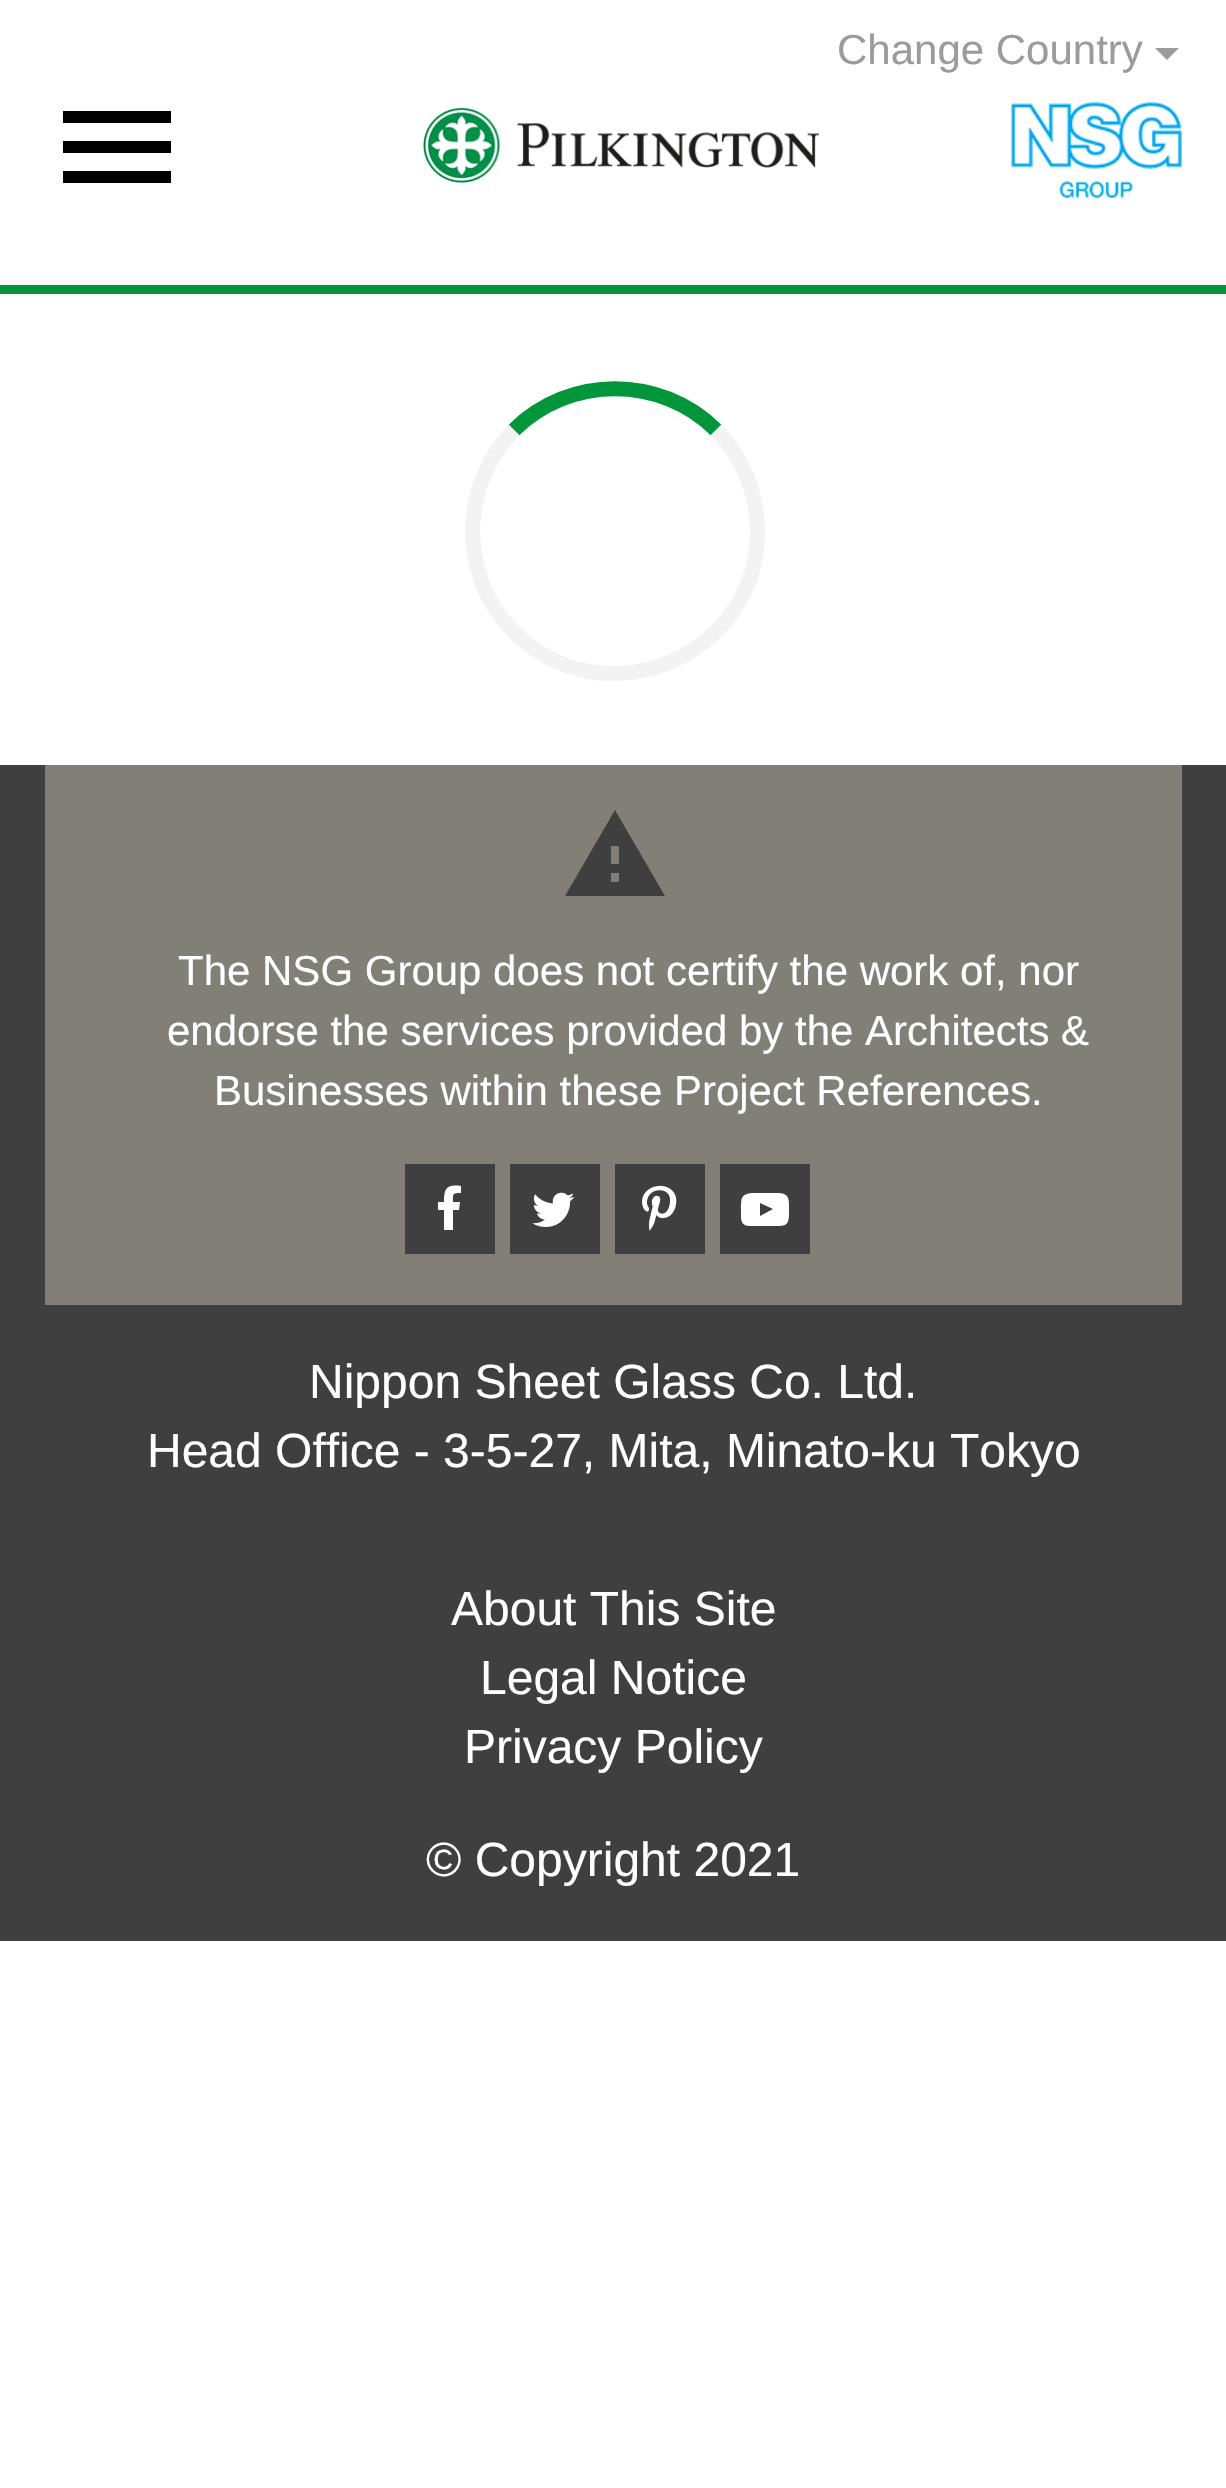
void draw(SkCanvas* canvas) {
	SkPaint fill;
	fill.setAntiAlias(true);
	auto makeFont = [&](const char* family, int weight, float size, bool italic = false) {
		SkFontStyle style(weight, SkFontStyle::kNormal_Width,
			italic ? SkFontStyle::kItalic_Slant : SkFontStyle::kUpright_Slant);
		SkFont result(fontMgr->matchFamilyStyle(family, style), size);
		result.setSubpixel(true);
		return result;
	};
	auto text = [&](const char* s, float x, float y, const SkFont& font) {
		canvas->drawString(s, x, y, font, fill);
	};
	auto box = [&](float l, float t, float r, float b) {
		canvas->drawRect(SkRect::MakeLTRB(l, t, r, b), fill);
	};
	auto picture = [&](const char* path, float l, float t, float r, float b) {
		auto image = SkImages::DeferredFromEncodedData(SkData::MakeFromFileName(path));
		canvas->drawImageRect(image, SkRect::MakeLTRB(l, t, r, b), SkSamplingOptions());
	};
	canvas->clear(0xFFFFFFFF);
	fill.setColor(0xFF9B9B9B);
	canvas->drawPath(SkPathBuilder().moveTo(1155, 48).lineTo(1179, 48).lineTo(1167, 60).close().detach(), fill);
	fill.setColor(0xFF000000);
	canvas->drawPath(SkPathBuilder().moveTo(63, 111).lineTo(171, 111).lineTo(171, 123).lineTo(63, 123).close().moveTo(63, 153).lineTo(63, 141).lineTo(171, 141).lineTo(171, 153).close().moveTo(63, 183).lineTo(63, 171).lineTo(171, 171).lineTo(171, 183).close().detach(), fill);
	picture("image0.png", 423, 108, 819, 183);
	picture("image1.png", 1011, 102, 1182, 198);
	fill.setColor(0xFF009639);
	box(0, 285, 1226, 294);
	fill.setStyle(SkPaint::kStroke_Style);
	fill.setStrokeWidth(15);
	canvas->drawPath(SkPathBuilder().moveTo(514, 430).cubicTo(569.5f, 375, 660.5f, 375, 716, 430).detach(), fill);
	fill.setColor(0xFFF3F3F3);
	canvas->drawPath(SkPathBuilder().moveTo(716, 430).cubicTo(742.5f, 457, 757.5f, 493.5f, 757.5f, 531).cubicTo(757.5f, 657.5f, 603.5f, 721, 514, 632).cubicTo(494.5f, 612, 480.5f, 586.5f, 475.5f, 559).cubicTo(466, 512.5f, 481, 463.5f, 514, 430).detach(), fill);
	fill.setStyle(SkPaint::kFill_Style);
	fill.setColor(0xFF3F3F3F);
	box(0, 765, 1226, 1941);
	fill.setColor(0xFF827F78);
	box(45, 765, 1182, 1305);
	fill.setColor(0xFF3F3F3F);
	canvas->drawPath(SkPathBuilder().moveTo(619, 864).lineTo(619, 846).lineTo(611, 846).lineTo(611, 864).close().moveTo(619, 882).lineTo(619, 873).lineTo(611, 873).lineTo(611, 882).close().moveTo(565, 896).lineTo(615, 810).lineTo(665, 896).close().detach(), fill);
	box(405, 1164, 495, 1254);
	fill.setColor(0xFFFFFFFF);
	canvas->drawPath(SkPathBuilder().moveTo(461, 1186).lineTo(461, 1193).cubicTo(452, 1193, 453, 1194, 453, 1202).lineTo(460, 1202).lineTo(459, 1210).lineTo(453, 1210).lineTo(453, 1230).lineTo(444, 1230).lineTo(444, 1210).lineTo(438, 1210).lineTo(438, 1202).lineTo(444, 1202).cubicTo(444, 1189, 446, 1184, 461, 1186).close().detach(), fill);
	fill.setColor(0xFF3F3F3F);
	box(510, 1164, 600, 1254);
	picture("image2.png", 532, 1192, 575, 1227);
	box(615, 1164, 705, 1254);
	picture("image3.png", 642, 1185, 677, 1231);
	box(720, 1164, 810, 1254);
	fill.setColor(0xFFFFFFFF);
	canvas->drawPath(SkPathBuilder().moveTo(760, 1216).lineTo(773, 1209).lineTo(760, 1203).close().moveTo(765, 1193).lineTo(779, 1193).cubicTo(790, 1194, 789, 1200, 789, 1210).cubicTo(789, 1222, 789, 1226, 778, 1226).lineTo(751, 1226).cubicTo(740, 1226, 741, 1220, 741, 1210).cubicTo(741, 1198, 741, 1194, 752, 1193).close().detach(), fill);
	auto font1 = makeFont("Liberation Sans", 400, 42);
	fill.setColor(0xFF9B9B9B);
	text("Change Country", 837, 64, font1);
	fill.setColor(0xFFFFFFFF);
	text("The NSG Group does not certify the work of, nor", 178, 985, font1);
	text("endorse the services provided by the Architects &", 167, 1045, font1);
	text("Businesses within these Project References.", 214, 1105, font1);
	auto font2 = makeFont("Liberation Sans", 400, 48);
	text("Nippon Sheet Glass Co. Ltd.", 309, 1398, font2);
	text("Head Office - 3-5-27, Mita, Minato-ku Tokyo", 147, 1467, font2);
	text("About This Site", 451, 1625, font2);
	text("Legal Notice", 480, 1694, font2);
	text("Privacy Policy", 464, 1763, font2);
	text("© Copyright 2021", 426, 1876, font2);
}
